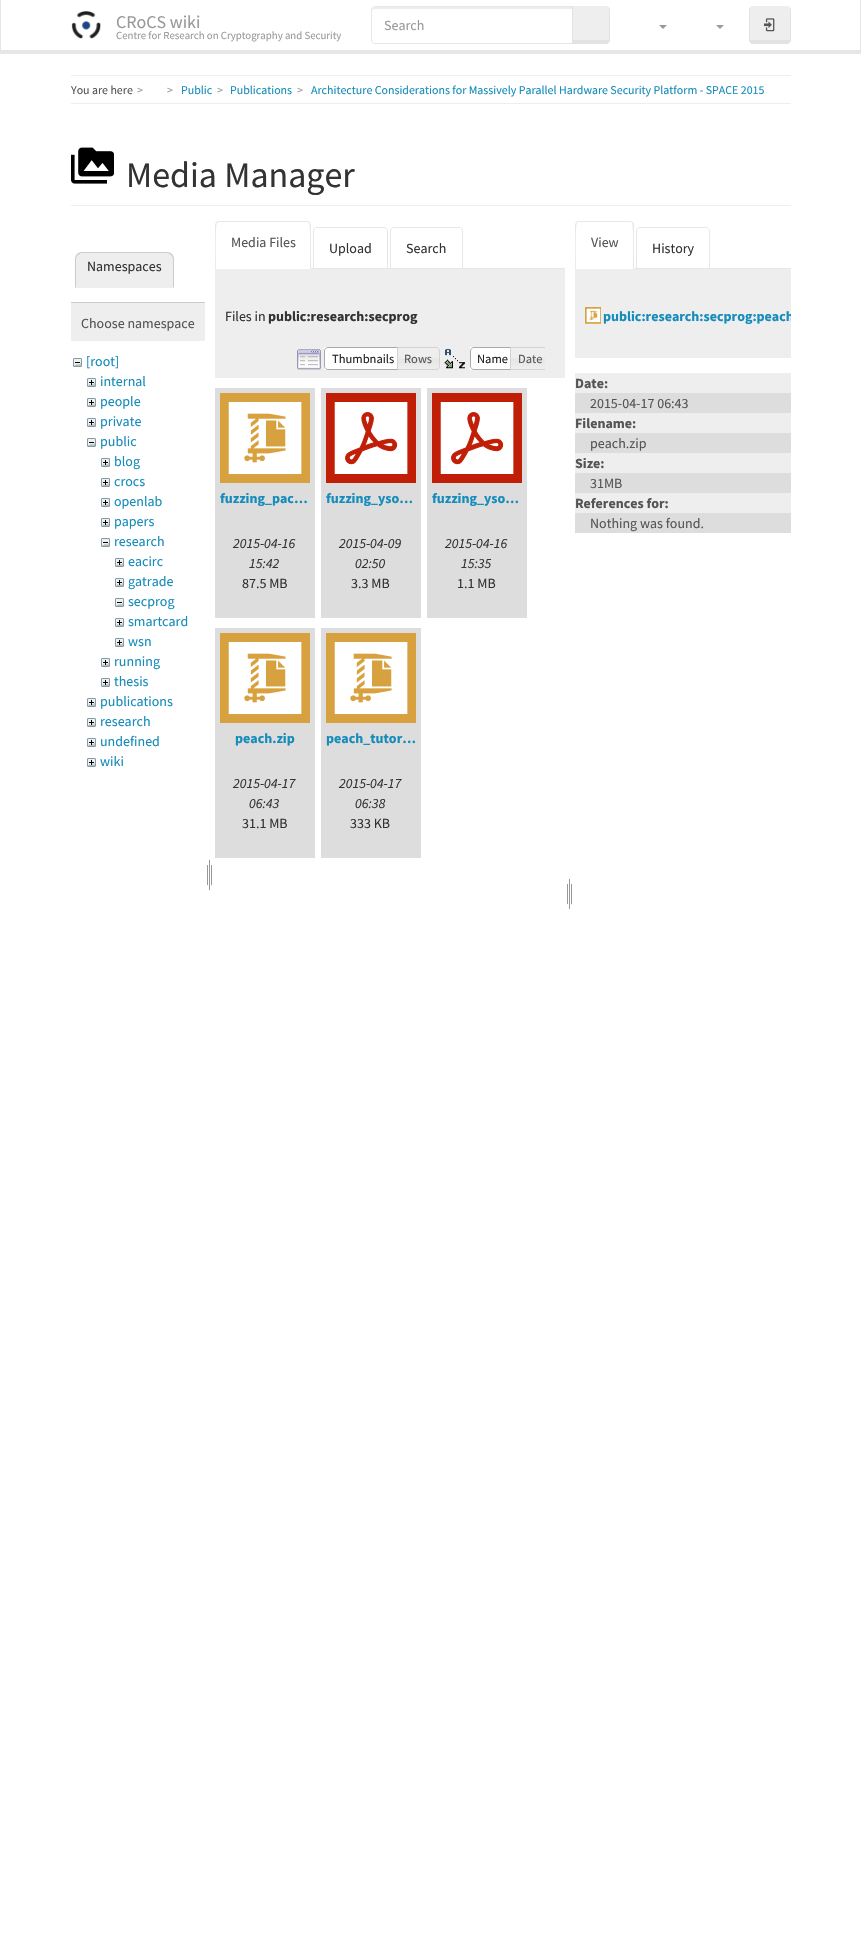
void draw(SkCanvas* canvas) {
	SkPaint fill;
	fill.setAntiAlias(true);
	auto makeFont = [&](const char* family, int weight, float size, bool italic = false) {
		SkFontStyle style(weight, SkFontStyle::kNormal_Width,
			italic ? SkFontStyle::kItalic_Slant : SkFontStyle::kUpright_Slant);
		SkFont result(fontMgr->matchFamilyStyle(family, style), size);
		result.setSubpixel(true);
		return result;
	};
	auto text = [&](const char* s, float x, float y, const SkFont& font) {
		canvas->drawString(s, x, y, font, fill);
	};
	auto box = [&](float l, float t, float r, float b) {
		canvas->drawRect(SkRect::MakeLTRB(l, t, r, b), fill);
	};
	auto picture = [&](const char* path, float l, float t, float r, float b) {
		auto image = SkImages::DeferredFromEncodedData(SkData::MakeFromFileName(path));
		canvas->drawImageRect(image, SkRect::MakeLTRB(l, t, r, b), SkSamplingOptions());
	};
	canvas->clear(0xFFFFFFFF);
	fill.setColor(0xFFE6E6E6);
	box(860, 0, 861, 54);
	box(0, 50, 861, 54);
	box(0, 0, 1, 54);
	picture("image0.png", 71, 11, 101, 39);
	fill.setColor(0xFFECECEC);
	canvas->drawPath(SkPathBuilder().moveTo(375, 9).lineTo(572, 9).lineTo(572, 7).lineTo(375, 7).cubicTo(372, 7, 372, 10, 372, 12).cubicTo(372, 10, 373, 9, 375, 9).close().detach(), fill);
	fill.setStyle(SkPaint::kStroke_Style);
	fill.setStrokeWidth(1);
	fill.setColor(0xFFE7E7E7);
	canvas->drawPath(SkPathBuilder().moveTo(375, 6.5f).lineTo(572.5f, 6.5f).lineTo(572.5f, 43.5f).lineTo(375, 43.5f).cubicTo(373, 43.5f, 371.5f, 42, 371.5f, 40).lineTo(371.5f, 10).cubicTo(371.5f, 8, 373, 6.5f, 375, 6.5f).close().detach(), fill);
	fill.setStyle(SkPaint::kFill_Style);
	fill.setColor(0xFFEEEEEE);
	canvas->drawPath(SkPathBuilder().moveTo(573, 6).lineTo(606, 6).cubicTo(607.5f, 6, 609, 8, 609, 10).lineTo(609, 40).lineTo(573, 40).close().detach(), fill);
	fill.setColor(0xFFE2E2E2);
	canvas->drawPath(SkPathBuilder(SkPathFillType::kEvenOdd).moveTo(572, 6).lineTo(606, 6).cubicTo(608, 6, 610, 8, 610, 10).lineTo(610, 40).cubicTo(610, 42, 608, 44, 606, 44).lineTo(572, 44).close().moveTo(573, 6).lineTo(606, 6).cubicTo(607.5f, 6, 609, 8, 609, 10).lineTo(609, 40).lineTo(573, 40).close().detach(), fill);
	fill.setColor(0xFF999999);
	canvas->drawPath(SkPathBuilder().moveTo(659, 25).lineTo(667, 25).lineTo(663, 29).close().detach(), fill);
	canvas->drawPath(SkPathBuilder().moveTo(716, 25).lineTo(724, 25).lineTo(720, 29).close().detach(), fill);
	fill.setColor(0xFFEEEEEE);
	canvas->drawPath(SkPathBuilder().moveTo(753, 6).lineTo(787, 6).cubicTo(789, 6, 790, 8, 790, 10).lineTo(790, 40).lineTo(750, 40).lineTo(750, 10).cubicTo(750, 8, 751, 6, 753, 6).close().detach(), fill);
	fill.setColor(0xFFE2E2E2);
	canvas->drawPath(SkPathBuilder(SkPathFillType::kEvenOdd).moveTo(753, 6).lineTo(787, 6).cubicTo(789, 6, 791, 8, 791, 10).lineTo(791, 40).cubicTo(791, 42, 789, 44, 787, 44).lineTo(753, 44).cubicTo(751, 44, 749, 42, 749, 40).lineTo(749, 10).cubicTo(749, 8, 751, 6, 753, 6).close().moveTo(753, 6).lineTo(787, 6).cubicTo(789, 6, 790, 8, 790, 10).lineTo(790, 40).lineTo(750, 40).lineTo(750, 10).cubicTo(750, 8, 751, 6, 753, 6).close().detach(), fill);
	picture("image1.png", 763, 18, 775, 32);
	fill.setColor(0xFFEEEEEE);
	box(71, 75, 791, 76);
	box(71, 103, 791, 104);
	box(71, 205, 791, 206);
	picture("image2.png", 71, 147, 114, 184);
	canvas->drawPath(SkPathBuilder().moveTo(82, 252).lineTo(167, 252).cubicTo(171, 252, 174, 255, 174, 259).lineTo(174, 288).lineTo(75, 288).lineTo(75, 259).cubicTo(75, 255, 78, 252, 82, 252).close().detach(), fill);
	fill.setColor(0xFFCCCCCC);
	canvas->drawPath(SkPathBuilder().moveTo(82, 252).cubicTo(80, 252, 78, 253, 77, 254).lineTo(78, 255).lineTo(81, 253).lineTo(168, 253).lineTo(171, 255).lineTo(172, 254).cubicTo(171, 253, 169, 252, 167, 252).close().detach(), fill);
	canvas->drawPath(SkPathBuilder().moveTo(174, 288).lineTo(174, 259).cubicTo(174, 257, 173, 255, 172, 254).lineTo(171, 255).cubicTo(172, 256, 173, 257.5f, 173, 259).lineTo(173, 287).close().detach(), fill);
	fill.setColor(0xFFEEEEEE);
	canvas->drawPath(SkPathBuilder().moveTo(174, 288).lineTo(173, 287).lineTo(76, 287).lineTo(75, 288).close().detach(), fill);
	fill.setColor(0xFFCCCCCC);
	canvas->drawPath(SkPathBuilder().moveTo(75, 288).lineTo(76, 287).lineTo(76, 259).cubicTo(76, 257.5f, 77, 256, 78, 255).lineTo(77, 254).cubicTo(76, 255, 75, 257, 75, 259).close().detach(), fill);
	fill.setColor(0xFFEEEEEE);
	box(71, 303, 205, 341);
	fill.setColor(0xFFCCCCCC);
	box(71, 302, 205, 303);
	picture("image3.png", 73, 358, 82, 367);
	picture("image4.png", 87, 378, 96, 387);
	picture("image4.png", 87, 398, 96, 407);
	picture("image4.png", 87, 418, 96, 427);
	picture("image3.png", 87, 438, 96, 447);
	picture("image4.png", 101, 458, 110, 467);
	picture("image4.png", 101, 478, 110, 487);
	picture("image4.png", 101, 498, 110, 507);
	picture("image4.png", 101, 518, 110, 527);
	picture("image3.png", 101, 538, 110, 547);
	picture("image4.png", 115, 558, 124, 567);
	picture("image4.png", 115, 578, 124, 587);
	picture("image3.png", 115, 598, 124, 607);
	picture("image4.png", 115, 618, 124, 627);
	picture("image4.png", 115, 638, 124, 647);
	picture("image4.png", 101, 658, 110, 667);
	picture("image4.png", 101, 678, 110, 687);
	picture("image4.png", 87, 698, 96, 707);
	picture("image4.png", 87, 718, 96, 727);
	picture("image4.png", 87, 738, 96, 747);
	picture("image4.png", 87, 758, 96, 767);
	picture("image5.png", 207, 859, 212, 890);
	fill.setColor(0xFFE7E7E7);
	box(311, 268, 565, 269);
	canvas->drawPath(SkPathBuilder().moveTo(219, 221).lineTo(216, 222).lineTo(217, 223).lineTo(219, 222).lineTo(307, 222).lineTo(309, 223).lineTo(310, 222).lineTo(307, 221).close().detach(), fill);
	canvas->drawPath(SkPathBuilder().moveTo(311, 269).lineTo(311, 225).cubicTo(311, 224, 310, 223, 310, 222).lineTo(309, 223).cubicTo(311, 225, 310, 263, 310, 268).close().detach(), fill);
	canvas->drawPath(SkPathBuilder().moveTo(215, 269).lineTo(216, 268).cubicTo(216, 263, 215, 225, 217, 223).lineTo(216, 222).lineTo(215, 225).close().detach(), fill);
	fill.setStyle(SkPaint::kStroke_Style);
	canvas->drawPath(SkPathBuilder().moveTo(317, 227.5f).lineTo(384, 227.5f).cubicTo(386, 227.5f, 387.5f, 229, 387.5f, 231).lineTo(387.5f, 268.5f).lineTo(313.5f, 268.5f).lineTo(313.5f, 231).cubicTo(313.5f, 229, 315, 227.5f, 317, 227.5f).close().detach(), fill);
	canvas->drawPath(SkPathBuilder().moveTo(394, 227.5f).lineTo(459, 227.5f).cubicTo(461, 227.5f, 462.5f, 229, 462.5f, 231).lineTo(462.5f, 268.5f).lineTo(390.5f, 268.5f).lineTo(390.5f, 231).cubicTo(390.5f, 229, 392, 227.5f, 394, 227.5f).close().detach(), fill);
	fill.setStyle(SkPaint::kFill_Style);
	fill.setColor(0xFFEEEEEE);
	box(215, 269, 565, 378);
	picture("image6.png", 297, 349, 321, 370);
	fill.setColor(0xFFFFFFFF);
	box(324, 347, 397, 370);
	fill.setStyle(SkPaint::kStroke_Style);
	fill.setColor(0xFFAAAAAA);
	canvas->drawPath(SkPathBuilder().moveTo(328, 347.5f).lineTo(401.5f, 347.5f).lineTo(401.5f, 369.5f).lineTo(328, 369.5f).cubicTo(326, 369.5f, 324.5f, 368, 324.5f, 366).lineTo(324.5f, 351).cubicTo(324.5f, 349, 326, 347.5f, 328, 347.5f).close().detach(), fill);
	picture("image7.png", 398, 347, 440, 370);
	fill.setColor(0xFFD3D3D3);
	canvas->drawPath(SkPathBuilder().moveTo(397.5f, 347.5f).lineTo(436, 347.5f).cubicTo(438, 347.5f, 439.5f, 349, 439.5f, 351).lineTo(439.5f, 366).cubicTo(439.5f, 368, 438, 369.5f, 436, 369.5f).lineTo(397.5f, 369.5f).close().detach(), fill);
	picture("image8.png", 444, 349, 465, 369);
	fill.setStyle(SkPaint::kFill_Style);
	fill.setColor(0xFFFFFFFF);
	box(470, 347, 510, 370);
	fill.setStyle(SkPaint::kStroke_Style);
	fill.setColor(0xFFAAAAAA);
	canvas->drawPath(SkPathBuilder().moveTo(474, 347.5f).lineTo(514.5f, 347.5f).lineTo(514.5f, 369.5f).lineTo(474, 369.5f).cubicTo(472, 369.5f, 470.5f, 368, 470.5f, 366).lineTo(470.5f, 351).cubicTo(470.5f, 349, 472, 347.5f, 474, 347.5f).close().detach(), fill);
	picture("image9.png", 511, 348, 545, 369);
	canvas->save();
	canvas->clipRect(SkRect::MakeLTRB(289, 347, 545, 370));
	fill.setColor(0xFFD3D3D3);
	canvas->drawPath(SkPathBuilder().moveTo(510.5f, 347.5f).lineTo(546, 347.5f).cubicTo(548, 347.5f, 549.5f, 349, 549.5f, 351).lineTo(549.5f, 366).cubicTo(549.5f, 368, 548, 369.5f, 546, 369.5f).lineTo(510.5f, 369.5f).close().detach(), fill);
	canvas->restore();
	fill.setStyle(SkPaint::kFill_Style);
	fill.setColor(0xFFDDDDDD);
	box(215, 388, 315, 618);
	picture("image10.png", 220, 393, 310, 483);
	box(321, 388, 421, 618);
	picture("image11.png", 326, 393, 416, 483);
	box(427, 388, 527, 618);
	picture("image11.png", 432, 393, 522, 483);
	box(215, 628, 315, 858);
	picture("image10.png", 220, 633, 310, 723);
	box(321, 628, 421, 858);
	picture("image10.png", 326, 633, 416, 723);
	picture("image5.png", 567, 878, 572, 909);
	fill.setColor(0xFFE7E7E7);
	box(634, 268, 791, 269);
	canvas->drawPath(SkPathBuilder().moveTo(579, 221).lineTo(576, 222).lineTo(577, 223).lineTo(578, 222).lineTo(631, 222).lineTo(632, 223).lineTo(633, 222).lineTo(630, 221).close().detach(), fill);
	canvas->drawPath(SkPathBuilder().moveTo(634, 269).lineTo(634, 225).cubicTo(634, 224, 634, 223, 633, 222).lineTo(632, 223).cubicTo(634, 225, 633, 263, 633, 268).close().moveTo(575, 269).lineTo(576, 268).cubicTo(576, 263, 575, 225, 577, 223).lineTo(576, 222).lineTo(575, 225).close().detach(), fill);
	fill.setStyle(SkPaint::kStroke_Style);
	canvas->drawPath(SkPathBuilder().moveTo(640, 227.5f).lineTo(706, 227.5f).cubicTo(708, 227.5f, 709.5f, 229, 709.5f, 231).lineTo(709.5f, 268.5f).lineTo(636.5f, 268.5f).lineTo(636.5f, 231).cubicTo(636.5f, 229, 638, 227.5f, 640, 227.5f).close().detach(), fill);
	fill.setStyle(SkPaint::kFill_Style);
	fill.setColor(0xFFEEEEEE);
	box(575, 269, 791, 358);
	picture("image12.png", 585, 307, 601, 324);
	box(575, 373, 791, 393);
	fill.setColor(0xFFDDDDDD);
	box(575, 393, 791, 413);
	fill.setColor(0xFFEEEEEE);
	box(575, 413, 791, 433);
	fill.setColor(0xFFDDDDDD);
	box(575, 433, 791, 453);
	fill.setColor(0xFFEEEEEE);
	box(575, 453, 791, 473);
	fill.setColor(0xFFDDDDDD);
	box(575, 473, 791, 493);
	fill.setColor(0xFFEEEEEE);
	box(575, 493, 791, 513);
	fill.setColor(0xFFDDDDDD);
	box(575, 513, 791, 533);
	auto font1 = makeFont("Source Sans Pro", 400, 18);
	fill.setColor(0xFF999999);
	text("CRoCS wiki", 116, 28, font1);
	auto font2 = makeFont("Source Sans Pro", 400, 10.8f);
	text("Centre for Research on Cryptography and Security", 116, 39, font2);
	auto font3 = makeFont("Source Sans Pro", 400, 14);
	text("Search", 384, 30, font3);
	auto font4 = makeFont("Source Sans Pro", 400, 11.9f);
	fill.setColor(0xFF555555);
	text("You are here", 71, 94, font4);
	fill.setColor(0xFF999999);
	text(">", 137, 94, font4);
	text(">", 167, 94, font4);
	fill.setColor(0xFF158CBA);
	text("Public", 181, 94, font4);
	fill.setColor(0xFF999999);
	text(">", 217, 94, font4);
	fill.setColor(0xFF158CBA);
	text("Publications", 230, 94, font4);
	fill.setColor(0xFF999999);
	text(">", 297, 94, font4);
	fill.setColor(0xFF158CBA);
	text("Architecture Considerations for Massively Parallel Hardware Security Platform - SPACE 2015", 311, 94, font4);
	auto font5 = makeFont("Source Sans Pro", 400, 36);
	fill.setColor(0xFF333333);
	text("Media Manager", 126, 187, font5);
	text("Namespaces", 87, 271, font3);
	fill.setColor(0xFF555555);
	text("Choose namespace", 81, 328, font3);
	fill.setColor(0xFF158CBA);
	text("[root]", 86, 366, font3);
	text("internal", 100, 386, font3);
	text("people", 100, 406, font3);
	text("private", 100, 426, font3);
	text("public", 100, 446, font3);
	text("blog", 114, 466, font3);
	text("crocs", 114, 486, font3);
	text("openlab", 114, 506, font3);
	text("papers", 114, 526, font3);
	text("research", 114, 546, font3);
	text("eacirc", 128, 566, font3);
	text("gatrade", 128, 586, font3);
	text("secprog", 128, 606, font3);
	text("smartcard", 128, 626, font3);
	text("wsn", 128, 646, font3);
	text("running", 114, 666, font3);
	text("thesis", 114, 686, font3);
	text("publications", 100, 706, font3);
	text("research", 100, 726, font3);
	text("undefined", 100, 746, font3);
	text("wiki", 100, 766, font3);
	fill.setColor(0xFF555555);
	text("Media Files", 231, 247, font3);
	fill.setColor(0xFF333333);
	text("Upload", 329, 253, font3);
	text("Search", 406, 253, font3);
	text("Files in", 225, 321, font3);
	auto font6 = makeFont("Source Sans Pro", 700, 14);
	text("public:research:secprog", 268, 321, font6);
	auto font7 = makeFont("Source Sans Pro", 400, 12.5f);
	fill.setColor(0xFF212121);
	text("Thumbnails", 332, 363, font7);
	fill.setColor(0xFF555555);
	text("Rows", 404, 363, font7);
	fill.setColor(0xFF212121);
	text("Name", 477, 363, font7);
	fill.setColor(0xFF555555);
	text("Date", 518, 363, font7);
	fill.setColor(0xFF158CBA);
	text("fuzzing_pac…", 220, 503, font6);
	auto font8 = makeFont("Source Sans Pro", 400, 14, true);
	fill.setColor(0xFF333333);
	text("2015-04-16", 233, 548, font8);
	text("15:42", 249, 568, font8);
	text("87.5 MB", 242, 588, font3);
	fill.setColor(0xFF158CBA);
	text("fuzzing_yso…", 326, 503, font6);
	fill.setColor(0xFF333333);
	text("2015-04-09", 339, 548, font8);
	text("02:50", 355, 568, font8);
	text("3.3 MB", 351, 588, font3);
	fill.setColor(0xFF158CBA);
	text("fuzzing_yso…", 432, 503, font6);
	fill.setColor(0xFF333333);
	text("2015-04-16", 445, 548, font8);
	text("15:35", 461, 568, font8);
	text("1.1 MB", 457, 588, font3);
	fill.setColor(0xFF158CBA);
	text("peach.zip", 235, 743, font6);
	fill.setColor(0xFF333333);
	text("2015-04-17", 233, 788, font8);
	text("06:43", 249, 808, font8);
	text("31.1 MB", 242, 828, font3);
	fill.setColor(0xFF158CBA);
	text("peach_tutor…", 326, 743, font6);
	fill.setColor(0xFF333333);
	text("2015-04-17", 339, 788, font8);
	text("06:38", 355, 808, font8);
	text("333 KB", 350, 828, font3);
	fill.setColor(0xFF555555);
	text("View", 591, 247, font3);
	fill.setColor(0xFF333333);
	text("History", 652, 253, font3);
	canvas->save();
	canvas->clipRect(SkRect::MakeLTRB(575, 269, 791, 358));
	fill.setColor(0xFF158CBA);
	text("public:research:secprog:peach", 603, 321, font6);
	canvas->restore();
	fill.setColor(0xFF555555);
	text("Date:", 575, 388, font6);
	text("2015-04-17 06:43", 590, 408, font3);
	text("Filename:", 575, 428, font6);
	text("peach.zip", 590, 448, font3);
	text("Size:", 575, 468, font6);
	text("31MB", 590, 488, font3);
	text("References for:", 575, 508, font6);
	text("Nothing was found.", 590, 528, font3);
}
